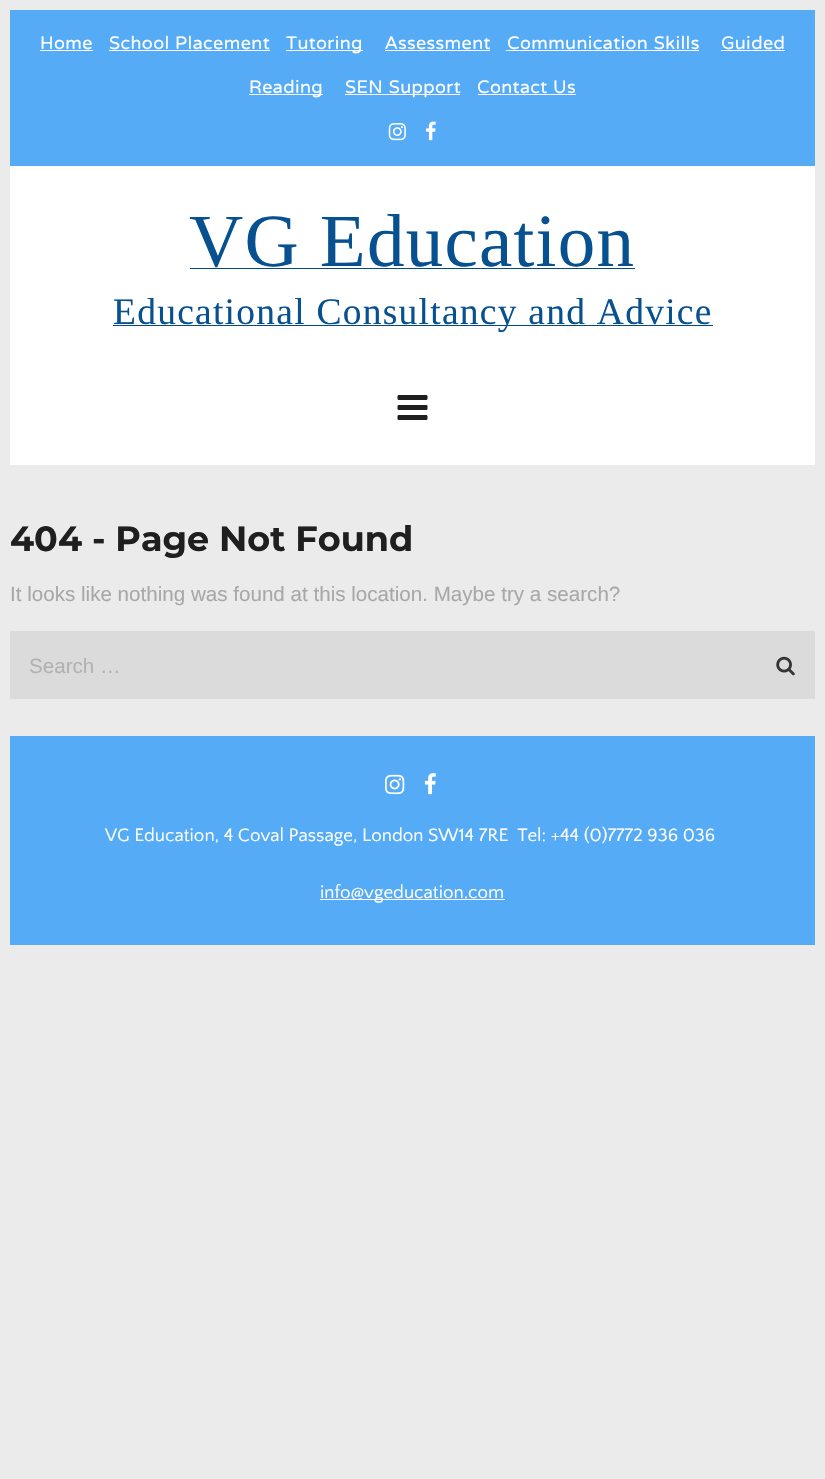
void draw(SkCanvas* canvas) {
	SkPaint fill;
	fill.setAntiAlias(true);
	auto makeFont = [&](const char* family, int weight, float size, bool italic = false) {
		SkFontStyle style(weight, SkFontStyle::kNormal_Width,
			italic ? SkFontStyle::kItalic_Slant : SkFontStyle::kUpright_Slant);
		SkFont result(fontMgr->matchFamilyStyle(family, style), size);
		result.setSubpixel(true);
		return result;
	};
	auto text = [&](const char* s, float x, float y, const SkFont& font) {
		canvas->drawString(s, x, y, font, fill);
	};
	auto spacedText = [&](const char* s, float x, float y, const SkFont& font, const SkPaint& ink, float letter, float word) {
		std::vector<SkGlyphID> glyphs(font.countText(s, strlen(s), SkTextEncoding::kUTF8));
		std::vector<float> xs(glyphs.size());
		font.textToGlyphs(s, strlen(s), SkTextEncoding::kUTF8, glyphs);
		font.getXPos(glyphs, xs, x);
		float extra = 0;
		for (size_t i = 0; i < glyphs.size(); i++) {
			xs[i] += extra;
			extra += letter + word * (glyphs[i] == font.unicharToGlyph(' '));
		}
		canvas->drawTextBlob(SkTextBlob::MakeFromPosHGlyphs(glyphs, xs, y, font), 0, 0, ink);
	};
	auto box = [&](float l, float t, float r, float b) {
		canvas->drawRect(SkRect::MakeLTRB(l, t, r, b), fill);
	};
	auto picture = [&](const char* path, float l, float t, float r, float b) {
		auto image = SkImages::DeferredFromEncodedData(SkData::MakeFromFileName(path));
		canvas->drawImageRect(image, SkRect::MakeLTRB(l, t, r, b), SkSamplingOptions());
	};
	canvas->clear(0xFFEBEBEB);
	fill.setColor(0xFF55ABF6);
	box(10, 10, 815, 166);
	fill.setColor(0xFFFFFFFF);
	box(40, 50, 93, 51);
	box(109, 50, 270, 51);
	box(286, 50, 363, 51);
	box(385, 50, 490, 51);
	box(506, 50, 699, 51);
	box(721, 50, 785, 51);
	box(249, 94, 323, 95);
	box(345, 94, 460, 95);
	box(478, 94, 576, 95);
	picture("image0.png", 388, 123, 406, 141);
	picture("image1.png", 426, 121, 436, 141);
	box(10, 166, 815, 465);
	fill.setColor(0xFF024986);
	box(190, 268, 635, 269);
	box(113, 325, 713, 326);
	picture("image2.png", 397, 395, 428, 420);
	fill.setColor(0xFFDBDBDB);
	box(10, 631, 815, 699);
	picture("image3.png", 776, 656, 795, 676);
	fill.setColor(0xFF55ABF6);
	box(10, 736, 815, 945);
	picture("image4.png", 385, 774, 405, 795);
	picture("image5.png", 424, 773, 436, 795);
	fill.setColor(0xFFFFFFFF);
	box(320, 899, 505, 900);
	auto font1 = makeFont("NTR", 400, 22.5f);
	spacedText("Home", 40, 49, font1, fill, 0.4f, 0);
	spacedText("School Placement", 109, 49, font1, fill, 0.4f, 0);
	spacedText("Tutoring", 286, 49, font1, fill, 0.4f, 0);
	spacedText("Assessment", 385, 49, font1, fill, 0.4f, 0);
	spacedText("Communication Skills", 507, 49, font1, fill, 0.4f, 0);
	spacedText("Guided", 721, 49, font1, fill, 0.4f, 0);
	spacedText("Reading", 249, 93, font1, fill, 0.4f, 0);
	spacedText("SEN Support", 345, 93, font1, fill, 0.4f, 0);
	spacedText("Contact Us", 477, 93, font1, fill, 0.4f, 0);
	auto font2 = makeFont("Liberation Serif", 400, 75);
	fill.setColor(0xFF085190);
	spacedText("VG Education", 189, 266, font2, fill, 1.25f, 0);
	auto font3 = makeFont("Liberation Serif", 400, 37.5f);
	spacedText("Educational Consultancy and Advice", 113, 324, font3, fill, 1.25f, 0);
	auto font4 = makeFont("Montserrat", 700, 35);
	fill.setColor(0xFF1F1F1F);
	text("404 - Page Not Found", 10, 551, font4);
	auto font5 = makeFont("Liberation Sans", 400, 20.6f);
	fill.setColor(0xFFA8A8A8);
	text("It looks like nothing was found at this location. Maybe try a search?", 10, 601, font5);
	fill.setColor(0xFFB2B2B2);
	text("Search …", 29, 673, font5);
	auto font6 = makeFont("Quattrocento Sans", 400, 18.75f);
	fill.setColor(0xFFFFFFFF);
	text("VG Education, 4 Coval Passage, London SW14 7RE  Tel: +44 (0)7772 936 036", 105, 841, font6);
	text("info@vgeducation.com", 320, 898, font6);
}
